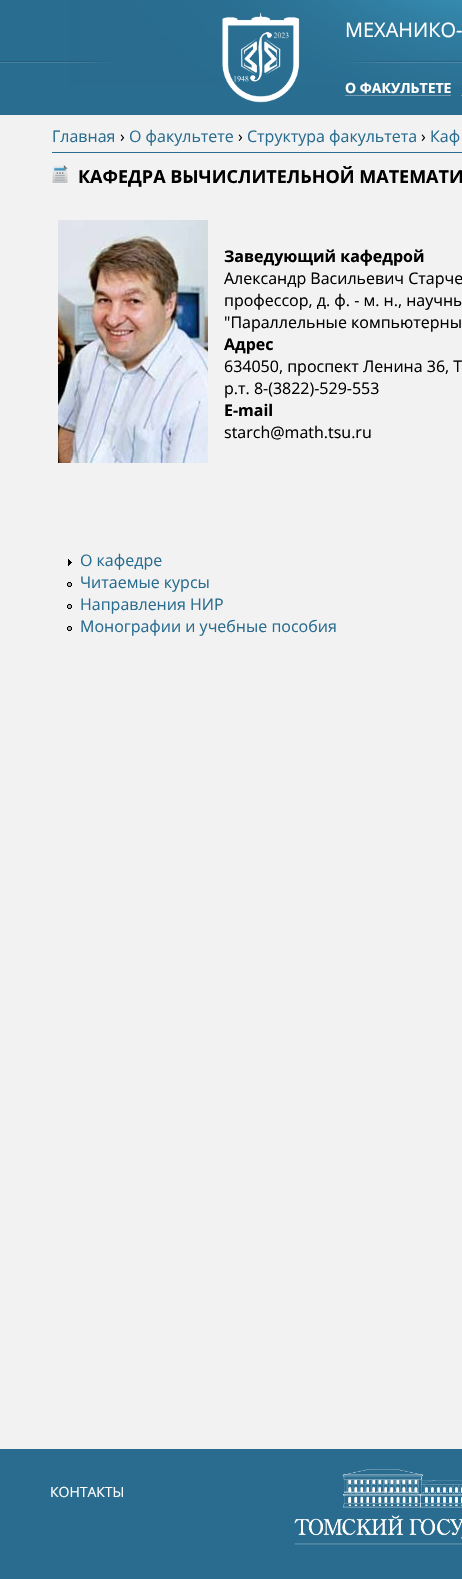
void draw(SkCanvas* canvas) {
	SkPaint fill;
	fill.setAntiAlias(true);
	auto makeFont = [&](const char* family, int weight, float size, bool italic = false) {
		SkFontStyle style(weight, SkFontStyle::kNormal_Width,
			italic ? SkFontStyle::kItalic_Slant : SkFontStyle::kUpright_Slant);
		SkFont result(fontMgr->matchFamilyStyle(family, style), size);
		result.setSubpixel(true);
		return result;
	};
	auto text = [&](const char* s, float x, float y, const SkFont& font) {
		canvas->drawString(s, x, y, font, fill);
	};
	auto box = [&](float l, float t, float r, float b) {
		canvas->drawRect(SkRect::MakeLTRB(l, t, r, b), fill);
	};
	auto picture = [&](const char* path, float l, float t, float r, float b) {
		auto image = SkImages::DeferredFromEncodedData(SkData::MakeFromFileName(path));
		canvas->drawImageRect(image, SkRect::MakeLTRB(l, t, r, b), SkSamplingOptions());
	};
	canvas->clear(0xFFF2F2F2);
	fill.setColor(0xFF296D90);
	box(0, 0, 462, 115);
	picture("image0.png", 0, 61, 69, 63);
	picture("image1.png", 69, 0, 462, 86);
	picture("image2.png", 222, 12, 300, 103);
	fill.setColor(0xFF769AB0);
	box(345, 95, 451, 96);
	box(461, 95, 462, 96);
	fill.setColor(0xFF296C8F);
	box(52, 152, 462, 153);
	picture("image3.png", 52, 165, 68, 183);
	picture("image4.png", 58, 220, 208, 463);
	picture("image5.png", 68, 559, 72, 566);
	picture("image6.png", 67, 582, 72, 587);
	picture("image6.png", 67, 604, 72, 609);
	picture("image6.png", 67, 626, 72, 631);
	box(0, 1449, 462, 1579);
	picture("image7.png", 294, 1469, 462, 1545);
	auto font1 = makeFont("Open Sans", 400, 20);
	fill.setColor(0xFFFFFFFF);
	text("МЕХАНИКО-", 345, 37, font1);
	auto font2 = makeFont("Open Sans", 700, 14);
	text("О ФАКУЛЬТЕТЕ", 345, 93, font2);
	auto font3 = makeFont("Open Sans", 400, 16);
	fill.setColor(0xFF296C8F);
	text("Главная", 52, 142, font3);
	fill.setColor(0xFF000000);
	text("›", 120, 142, font3);
	fill.setColor(0xFF296C8F);
	text("О факультете", 129, 142, font3);
	fill.setColor(0xFF000000);
	text("›", 238, 142, font3);
	fill.setColor(0xFF296C8F);
	text("Структура факультета", 247, 142, font3);
	fill.setColor(0xFF000000);
	text("›", 421, 142, font3);
	fill.setColor(0xFF296C8F);
	text("Каф", 430, 142, font3);
	auto font4 = makeFont("Open Sans", 700, 18);
	fill.setColor(0xFF000000);
	text("КАФЕДРА ВЫЧИСЛИТЕЛЬНОЙ МАТЕМАТИ", 78, 183, font4);
	auto font5 = makeFont("Open Sans", 700, 16);
	text("Заведующий кафедрой", 224, 262, font5);
	text("Александр Васильевич Старче", 224, 284, font3);
	text("профессор, д. ф. - м. н., научны", 224, 306, font3);
	text("\"Параллельные компьютерны", 224, 328, font3);
	text("Адрес", 224, 350, font5);
	text("634050, проспект Ленина 36, Т", 224, 372, font3);
	text("р.т. 8-(3822)-529-553", 224, 394, font3);
	text("E-mail", 224, 416, font5);
	text("starch@math.tsu.ru", 224, 438, font3);
	fill.setColor(0xFF296C8F);
	text("О кафедре", 80, 566, font3);
	text("Читаемые курсы", 80, 588, font3);
	text("Направления НИР", 80, 610, font3);
	text("Монографии и учебные пособия", 80, 632, font3);
	auto font6 = makeFont("Open Sans", 400, 14);
	fill.setColor(0xFFFFFFFF);
	text("КОНТАКТЫ", 50, 1497, font6);
}
